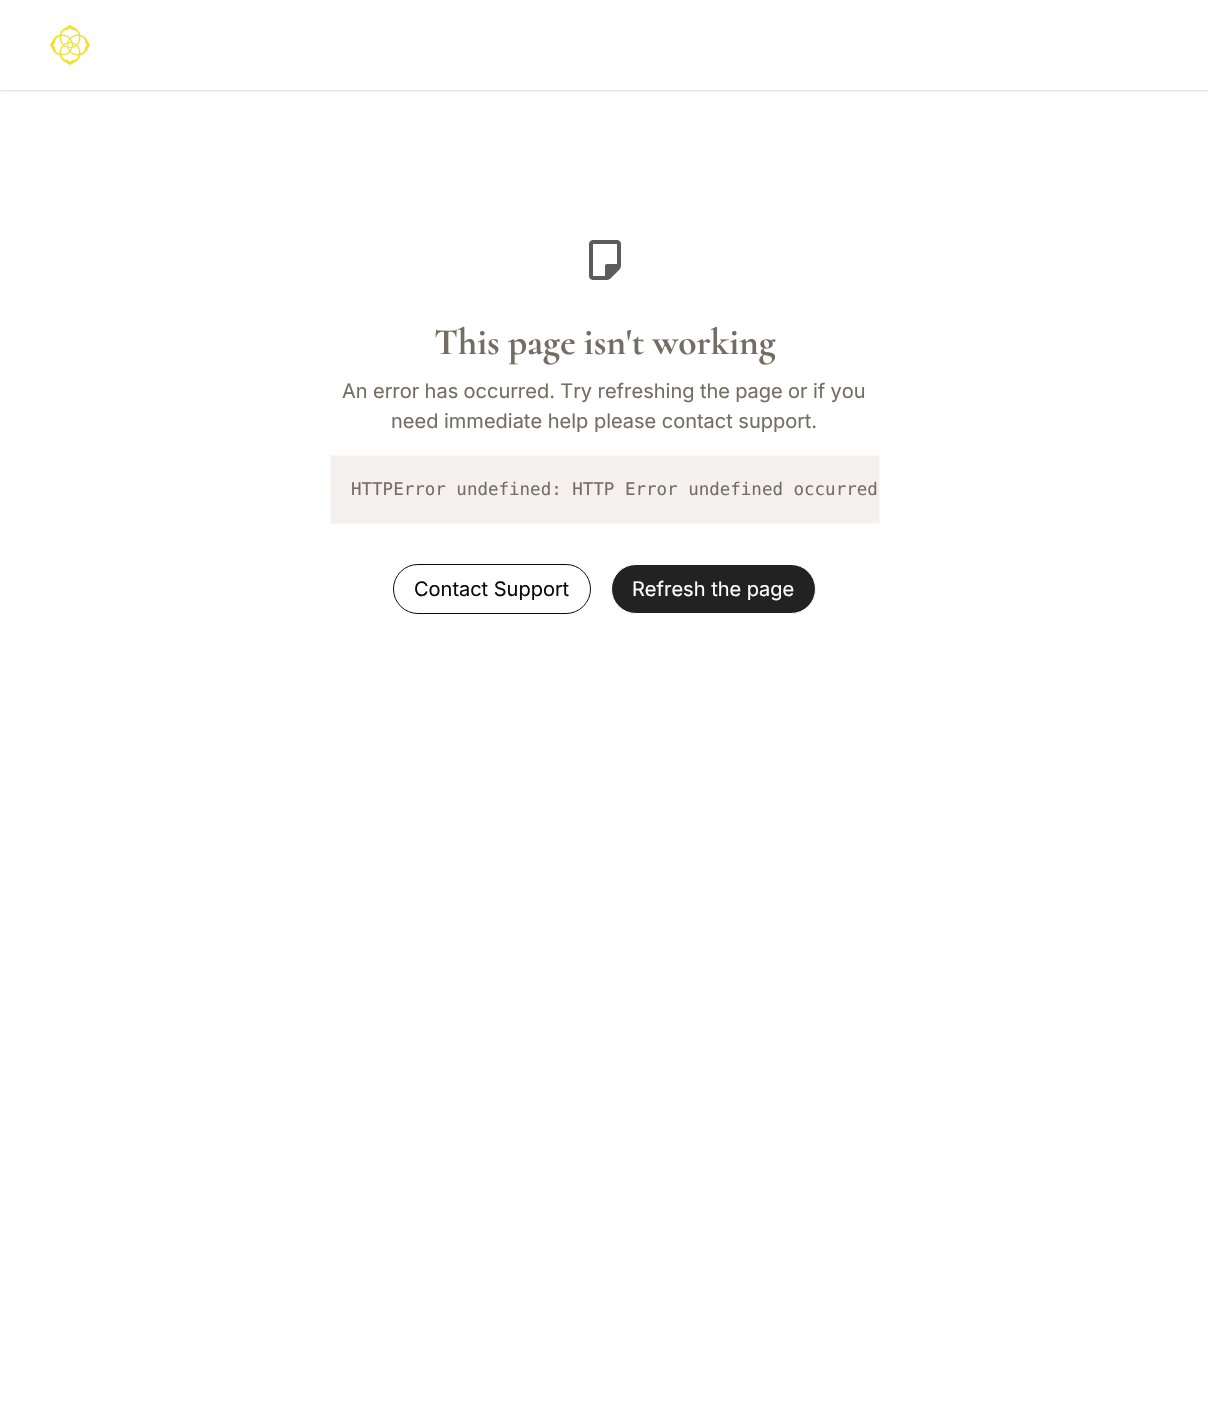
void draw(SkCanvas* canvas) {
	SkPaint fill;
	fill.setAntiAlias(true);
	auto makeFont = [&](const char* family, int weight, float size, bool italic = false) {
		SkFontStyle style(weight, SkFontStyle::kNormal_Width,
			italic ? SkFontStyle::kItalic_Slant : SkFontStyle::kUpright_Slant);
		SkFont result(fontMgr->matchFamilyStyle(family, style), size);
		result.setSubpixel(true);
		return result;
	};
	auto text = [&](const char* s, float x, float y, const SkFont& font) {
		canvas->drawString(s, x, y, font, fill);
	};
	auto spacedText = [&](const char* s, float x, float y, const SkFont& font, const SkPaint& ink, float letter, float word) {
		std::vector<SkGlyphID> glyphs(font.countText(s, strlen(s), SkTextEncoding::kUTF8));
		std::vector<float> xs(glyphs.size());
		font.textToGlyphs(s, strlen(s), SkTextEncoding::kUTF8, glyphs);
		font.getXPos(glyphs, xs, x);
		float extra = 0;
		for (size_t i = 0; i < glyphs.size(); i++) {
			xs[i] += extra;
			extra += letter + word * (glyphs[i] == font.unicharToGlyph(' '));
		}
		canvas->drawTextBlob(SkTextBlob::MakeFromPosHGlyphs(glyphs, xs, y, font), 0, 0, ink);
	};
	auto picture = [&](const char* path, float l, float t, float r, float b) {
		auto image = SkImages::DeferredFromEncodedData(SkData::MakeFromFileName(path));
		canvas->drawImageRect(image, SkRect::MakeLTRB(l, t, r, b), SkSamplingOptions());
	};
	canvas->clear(0xFFFFFFFF);
	canvas->save();
	canvas->clipRect(SkRect::MakeLTRB(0, 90, 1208, 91));
	fill.setColor(0x0F000000);
	fill.setMaskFilter(SkMaskFilter::MakeBlur(kNormal_SkBlurStyle, 1));
	canvas->drawRect(SkRect::MakeLTRB(0, 1, 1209, 91), fill);
	fill.setMaskFilter(nullptr);
	canvas->restore();
	canvas->save();
	canvas->clipRect(SkRect::MakeLTRB(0, 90, 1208, 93));
	fill.setColor(0x1A000000);
	fill.setMaskFilter(SkMaskFilter::MakeBlur(kNormal_SkBlurStyle, 2));
	canvas->drawRect(SkRect::MakeLTRB(0, 1, 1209, 91), fill);
	fill.setMaskFilter(nullptr);
	canvas->restore();
	picture("image0.png", 50, 25, 90, 65);
	picture("image1.png", 589, 240, 621, 280);
	fill.setColor(0xFFF3F0ED);
	canvas->drawRect(SkRect::MakeLTRB(330.5f, 455.5f, 879.5f, 523.5f), fill);
	fill.setStyle(SkPaint::kStroke_Style);
	fill.setStrokeWidth(1);
	fill.setColor(0xFFF7F8F9);
	canvas->drawRect(SkRect::MakeLTRB(330.5f, 455.5f, 879.5f, 523.5f), fill);
	fill.setColor(0xFF0A0A0A);
	canvas->drawRoundRect(SkRect::MakeLTRB(393.5f, 564.5f, 590.5f, 613.5f), 24.5f, 24.5f, fill);
	fill.setStyle(SkPaint::kFill_Style);
	fill.setColor(0xFF222222);
	canvas->drawRoundRect(SkRect::MakeLTRB(611.5f, 564.5f, 815.5f, 613.5f), 24.5f, 24.5f, fill);
	fill.setStyle(SkPaint::kStroke_Style);
	fill.setColor(0xFFFFFFFF);
	canvas->drawRoundRect(SkRect::MakeLTRB(611.5f, 564.5f, 815.5f, 613.5f), 24.5f, 24.5f, fill);
	auto font1 = makeFont("Cormorant", 700, 37.5f);
	fill.setStyle(SkPaint::kFill_Style);
	fill.setColor(0xFF746D63);
	spacedText("This page isn't working", 434, 354, font1, fill, 0, -0.5f);
	auto font2 = makeFont("Inter", 400, 20);
	spacedText("An error has occurred. Try refreshing the page or if you", 342, 398, font2, fill, 0, -0.25f);
	text("need immediate help please contact support.", 391, 428, font2);
	auto font3 = makeFont("DejaVu Sans Mono", 400, 17.5f);
	text("HTTPError undefined: HTTP Error undefined occurred", 351, 495, font3);
	fill.setColor(0xFF0A0A0A);
	text("Contact Support", 414, 596, font2);
	fill.setColor(0xFFFFFFFF);
	text("Refresh the page", 632, 596, font2);
}
